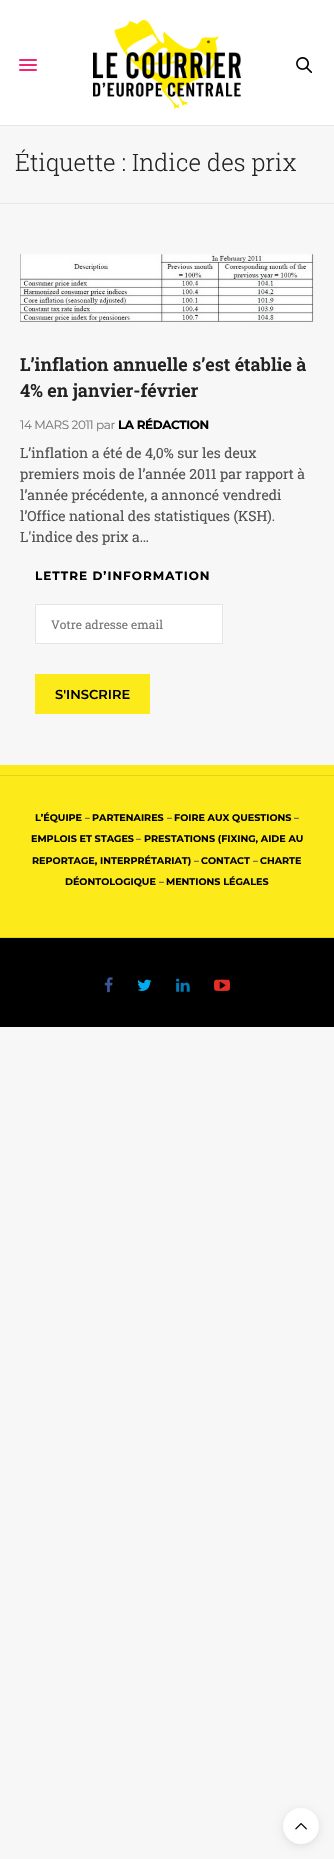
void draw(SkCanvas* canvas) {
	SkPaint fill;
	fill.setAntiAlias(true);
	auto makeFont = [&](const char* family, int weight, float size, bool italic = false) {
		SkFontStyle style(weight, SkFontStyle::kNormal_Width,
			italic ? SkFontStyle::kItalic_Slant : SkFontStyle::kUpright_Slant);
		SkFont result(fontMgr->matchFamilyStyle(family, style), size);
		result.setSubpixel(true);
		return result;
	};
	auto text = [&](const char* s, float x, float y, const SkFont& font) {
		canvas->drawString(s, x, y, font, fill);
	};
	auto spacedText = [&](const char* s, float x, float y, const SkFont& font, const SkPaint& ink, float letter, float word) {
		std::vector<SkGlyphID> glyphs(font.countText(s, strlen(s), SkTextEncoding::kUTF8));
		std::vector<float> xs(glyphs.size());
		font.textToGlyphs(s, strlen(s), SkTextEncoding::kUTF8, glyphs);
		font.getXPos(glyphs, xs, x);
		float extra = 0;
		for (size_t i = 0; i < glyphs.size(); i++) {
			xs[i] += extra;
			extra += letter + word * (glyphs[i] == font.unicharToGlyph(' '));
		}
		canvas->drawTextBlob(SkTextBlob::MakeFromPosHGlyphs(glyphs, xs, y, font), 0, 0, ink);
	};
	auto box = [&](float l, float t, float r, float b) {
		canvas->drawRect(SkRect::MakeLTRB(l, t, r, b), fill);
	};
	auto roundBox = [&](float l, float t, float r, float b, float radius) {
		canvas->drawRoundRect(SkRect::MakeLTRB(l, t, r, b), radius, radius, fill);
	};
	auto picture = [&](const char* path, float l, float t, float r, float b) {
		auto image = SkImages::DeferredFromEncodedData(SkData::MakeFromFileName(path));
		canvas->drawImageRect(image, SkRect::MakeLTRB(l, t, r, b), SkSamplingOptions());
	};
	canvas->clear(0xFFF7F7F7);
	fill.setColor(0xFFFFFFFF);
	box(0, 0, 334, 125);
	fill.setColor(0xFFE6E6E6);
	box(0, 125, 334, 126);
	fill.setColor(0xFFEF2673);
	roundBox(19, 59, 37, 61, 1);
	roundBox(19, 64, 37, 66, 1);
	roundBox(19, 69, 37, 71, 1);
	picture("image0.png", 93, 20, 241, 110);
	picture("image1.png", 296, 57, 312, 73);
	fill.setColor(0xFFE6E6E6);
	box(0, 203, 334, 204);
	picture("image2.png", 20, 254, 314, 322);
	fill.setColor(0xFFFFFFFF);
	canvas->drawRect(SkRect::MakeLTRB(35.5f, 604.5f, 222.5f, 643.5f), fill);
	fill.setStyle(SkPaint::kStroke_Style);
	fill.setStrokeWidth(1);
	fill.setColor(0xFFE5E5E5);
	canvas->drawRect(SkRect::MakeLTRB(35.5f, 604.5f, 222.5f, 643.5f), fill);
	fill.setStyle(SkPaint::kFill_Style);
	fill.setColor(0xFFFCEA1B);
	box(35, 674, 150, 714);
	box(0, 765, 334, 937);
	fill.setColor(0xFFE3D318);
	box(0, 775, 334, 776);
	box(0, 937, 334, 938);
	fill.setColor(0xFF000000);
	box(0, 938, 334, 1027);
	picture("image3.png", 104, 977, 113, 993);
	picture("image4.png", 137, 979, 152, 991);
	picture("image5.png", 176, 978, 190, 992);
	picture("image6.png", 214, 979, 230, 991);
	fill.setColor(0x1A000000);
	fill.setMaskFilter(SkMaskFilter::MakeBlur(kNormal_SkBlurStyle, 4));
	canvas->drawRoundRect(SkRect::MakeLTRB(283, 1810, 319, 1846), 18, 18, fill);
	fill.setMaskFilter(nullptr);
	fill.setColor(0xFFFFFFFF);
	canvas->drawCircle(301, 1826, 18, fill);
	picture("image7.png", 295, 1823, 307, 1830);
	auto font1 = makeFont("Roboto Slab", 300, 24);
	fill.setColor(0xFF222222);
	text("Étiquette : Indice des prix", 15, 171, font1);
	auto font2 = makeFont("Roboto Slab", 600, 18);
	text("L’inflation annuelle s’est établie à", 20, 371, font2);
	text("4% en janvier-février", 20, 397, font2);
	auto font3 = makeFont("Montserrat", 400, 12);
	fill.setColor(0xFF767676);
	spacedText("14 MARS 2011 par", 20, 429, font3, fill, -0.4f, 0);
	auto font4 = makeFont("Montserrat", 700, 12);
	fill.setColor(0xFF000000);
	spacedText("LA RÉDACTION", 118, 429, font4, fill, -0.4f, 0);
	auto font5 = makeFont("Roboto Slab", 400, 14);
	fill.setColor(0xFF545353);
	text("L’inflation a été de 4,0% sur les deux", 20, 458, font5);
	text("premiers mois de l’année 2011 par rapport à", 20, 479, font5);
	text("l’année précédente, a annoncé vendredi", 20, 500, font5);
	text("l’Office national des statistiques (KSH).", 20, 521, font5);
	text("L'indice des prix a…", 20, 542, font5);
	fill.setColor(0xFF000000);
	spacedText("LETTRE D’INFORMATION", 35, 580, font4, fill, 1, 0);
	auto font6 = makeFont("Roboto Slab", 400, 12);
	fill.setColor(0xFF767676);
	text("Votre adresse email", 51, 629, font6);
	auto font7 = makeFont("Montserrat", 600, 13);
	fill.setColor(0xFF000000);
	text("S'INSCRIRE", 55, 699, font7);
	auto font8 = makeFont("Montserrat", 700, 9.6f);
	text("L’ÉQUIPE", 35, 821, font8);
	fill.setColor(0xFF545353);
	text("–", 85, 821, font8);
	fill.setColor(0xFF000000);
	text("PARTENAIRES", 92, 821, font8);
	fill.setColor(0xFF545353);
	text("–", 167, 821, font8);
	fill.setColor(0xFF000000);
	text("FOIRE AUX QUESTIONS", 174, 821, font8);
	fill.setColor(0xFF545353);
	text("–", 294, 821, font8);
	fill.setColor(0xFF000000);
	text("EMPLOIS ET STAGES", 31, 842, font8);
	fill.setColor(0xFF545353);
	text("–", 136, 842, font8);
	fill.setColor(0xFF000000);
	text("PRESTATIONS (FIXING, AIDE AU", 144, 842, font8);
	text("REPORTAGE, INTERPRÉTARIAT)", 32, 864, font8);
	fill.setColor(0xFF545353);
	text("–", 194, 864, font8);
	fill.setColor(0xFF000000);
	text("CONTACT", 201, 864, font8);
	fill.setColor(0xFF545353);
	text("–", 253, 864, font8);
	fill.setColor(0xFF000000);
	text("CHARTE", 260, 864, font8);
	text("DÉONTOLOGIQUE", 65, 885, font8);
	fill.setColor(0xFF545353);
	text("–", 159, 885, font8);
	fill.setColor(0xFF000000);
	text("MENTIONS LÉGALES", 166, 885, font8);
}
